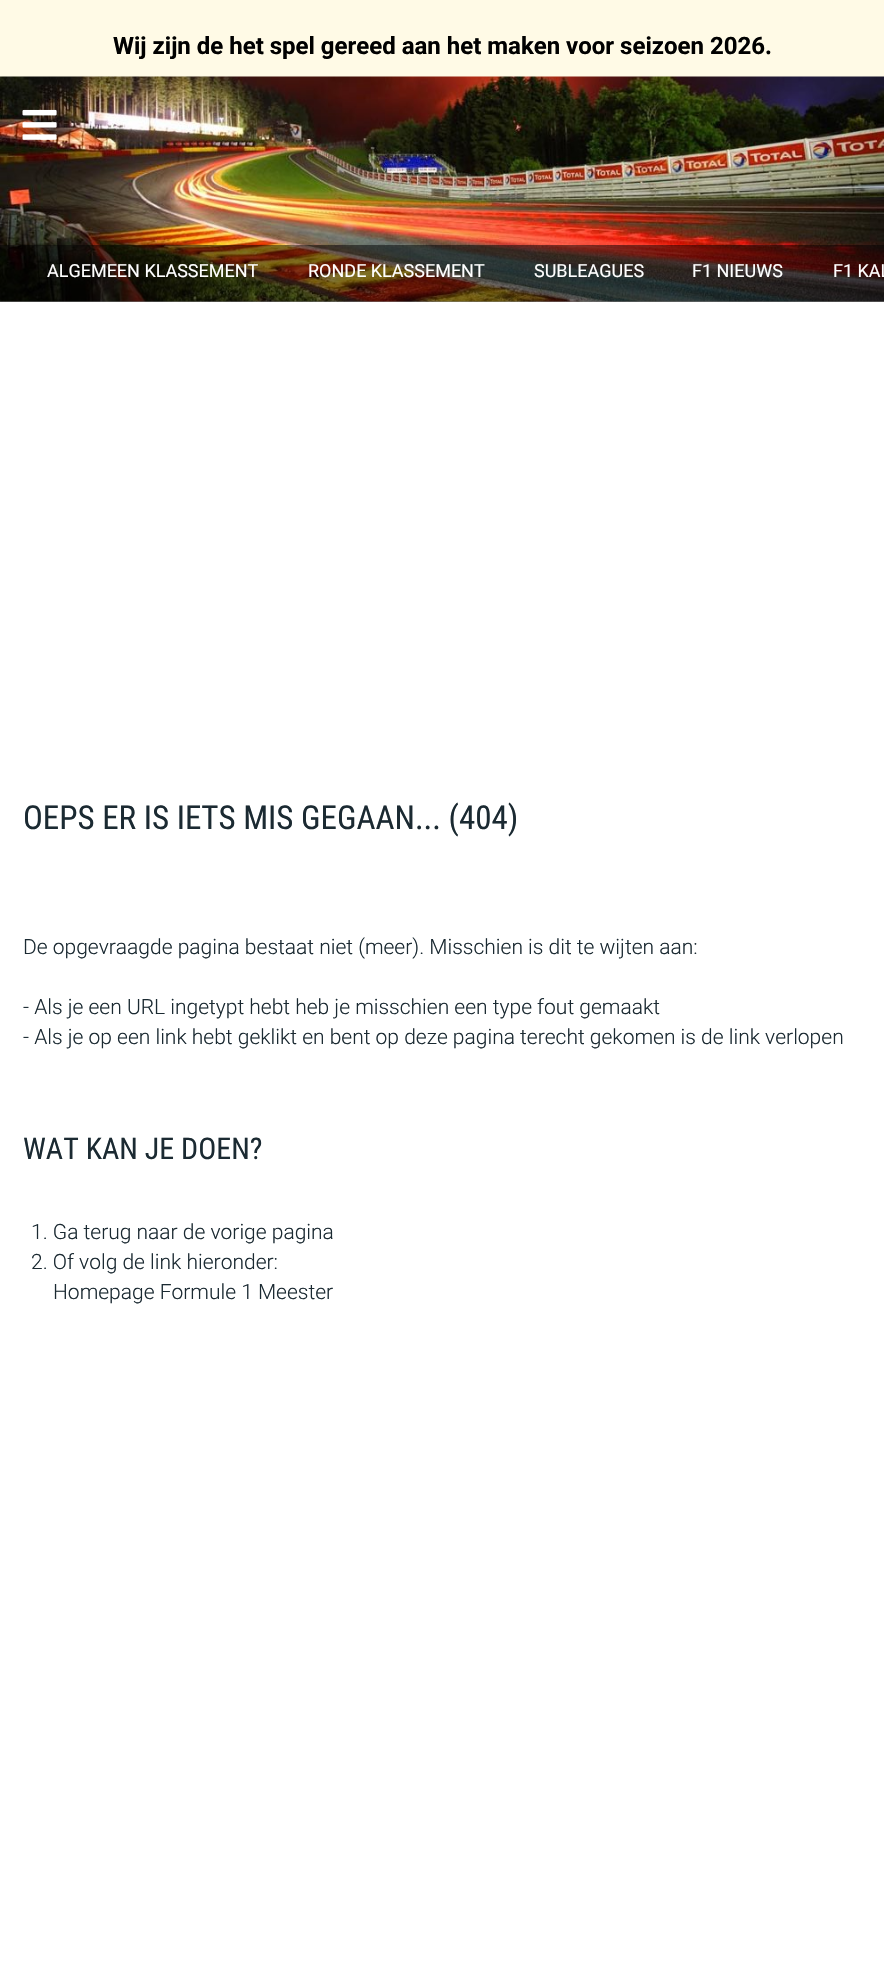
void draw(SkCanvas* canvas) {
	SkPaint fill;
	fill.setAntiAlias(true);
	auto makeFont = [&](const char* family, int weight, float size, bool italic = false) {
		SkFontStyle style(weight, SkFontStyle::kNormal_Width,
			italic ? SkFontStyle::kItalic_Slant : SkFontStyle::kUpright_Slant);
		SkFont result(fontMgr->matchFamilyStyle(family, style), size);
		result.setSubpixel(true);
		return result;
	};
	auto text = [&](const char* s, float x, float y, const SkFont& font) {
		canvas->drawString(s, x, y, font, fill);
	};
	auto box = [&](float l, float t, float r, float b) {
		canvas->drawRect(SkRect::MakeLTRB(l, t, r, b), fill);
	};
	auto picture = [&](const char* path, float l, float t, float r, float b) {
		auto image = SkImages::DeferredFromEncodedData(SkData::MakeFromFileName(path));
		canvas->drawImageRect(image, SkRect::MakeLTRB(l, t, r, b), SkSamplingOptions());
	};
	canvas->clear(0xFFFFFFFF);
	fill.setColor(0xFFFFFAE6);
	box(0, 0, 884, 77);
	picture("image0.png", 0, 76, 884, 302);
	picture("image1.png", 22, 109, 57, 140);
	fill.setColor(0x80000000);
	box(0, 245, 884, 302);
	auto font1 = makeFont("Roboto", 700, 24);
	fill.setColor(0xFF000000);
	text("Wij zijn de het spel gereed aan het maken voor seizoen 2026.", 113, 54, font1);
	auto font2 = makeFont("Roboto", 400, 18);
	fill.setColor(0xFFFFFFFF);
	text("ALGEMEEN KLASSEMENT", 47, 277, font2);
	text("RONDE KLASSEMENT", 308, 277, font2);
	text("SUBLEAGUES", 534, 277, font2);
	text("F1 NIEUWS", 692, 277, font2);
	text("F1 KAL", 833, 277, font2);
	auto font3 = makeFont("Roboto Condensed", 400, 33);
	fill.setColor(0xFF1B2A32);
	text("OEPS ER IS IETS MIS GEGAAN... (404)", 23, 829, font3);
	auto font4 = makeFont("Roboto", 300, 21);
	text("De opgevraagde pagina bestaat niet (meer). Misschien is dit te wijten aan:", 23, 954, font4);
	text("- Als je een URL ingetypt hebt heb je misschien een type fout gemaakt", 23, 1014, font4);
	text("- Als je op een link hebt geklikt en bent op deze pagina terecht gekomen is de link verlopen", 23, 1044, font4);
	auto font5 = makeFont("Roboto Condensed", 400, 30);
	text("WAT KAN JE DOEN?", 23, 1159, font5);
	text("1. Ga terug naar de vorige pagina", 31, 1239, font4);
	text("2. Of volg de link hieronder:", 31, 1269, font4);
	text("Homepage Formule 1 Meester", 53, 1299, font4);
}
